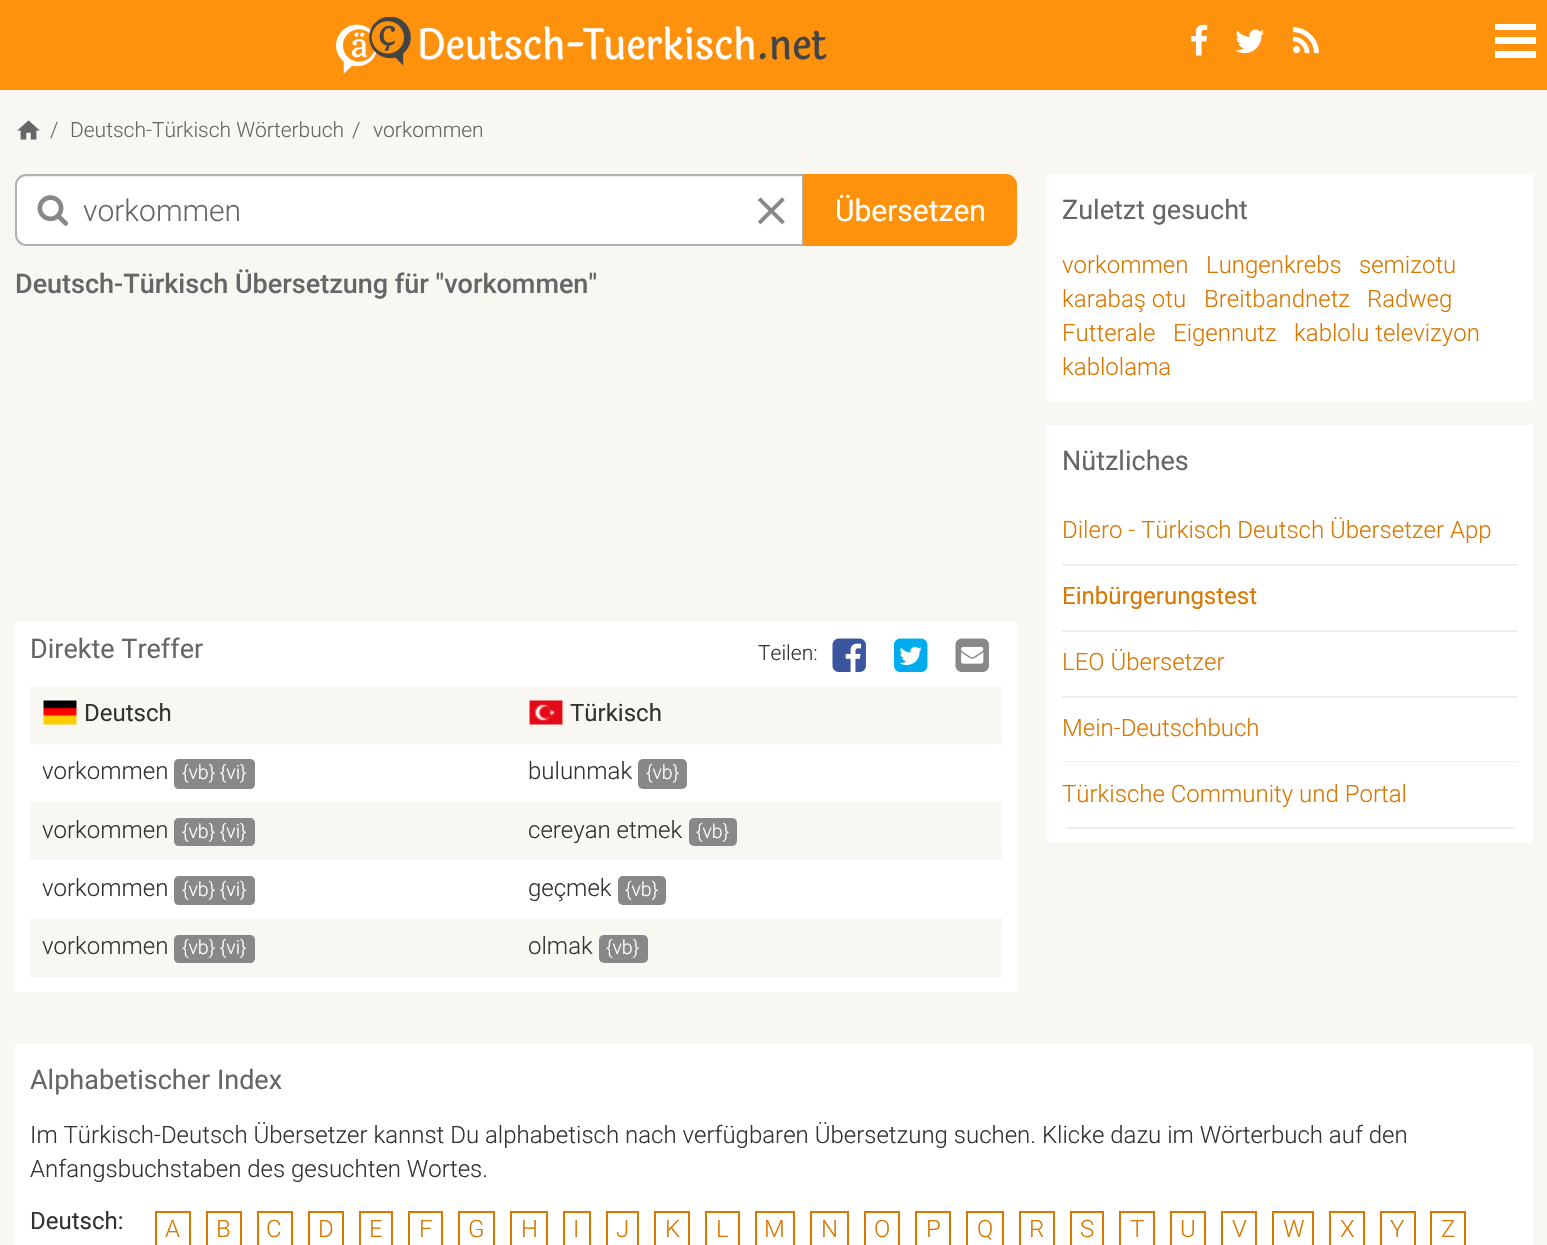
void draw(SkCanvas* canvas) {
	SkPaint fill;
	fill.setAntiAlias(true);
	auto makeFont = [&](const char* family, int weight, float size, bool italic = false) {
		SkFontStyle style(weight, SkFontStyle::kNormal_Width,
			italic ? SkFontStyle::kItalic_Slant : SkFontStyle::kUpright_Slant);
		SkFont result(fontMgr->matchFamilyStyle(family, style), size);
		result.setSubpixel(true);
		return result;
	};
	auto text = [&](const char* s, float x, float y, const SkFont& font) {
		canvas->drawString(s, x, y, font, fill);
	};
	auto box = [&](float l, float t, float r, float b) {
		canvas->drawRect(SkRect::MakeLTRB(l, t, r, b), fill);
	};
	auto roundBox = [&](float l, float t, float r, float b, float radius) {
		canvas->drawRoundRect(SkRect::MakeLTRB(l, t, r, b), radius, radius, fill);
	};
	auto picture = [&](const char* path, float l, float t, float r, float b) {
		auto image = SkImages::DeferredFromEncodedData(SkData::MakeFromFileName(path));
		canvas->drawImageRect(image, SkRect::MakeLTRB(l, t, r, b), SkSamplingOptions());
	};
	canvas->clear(0xFFF8F7F2);
	fill.setColor(0xFFFF920D);
	box(0, 0, 1547, 90);
	picture("image0.png", 336, 17, 827, 74);
	picture("image1.png", 1191, 24, 1208, 56);
	picture("image2.png", 1235, 29, 1265, 54);
	picture("image3.png", 1293, 27, 1319, 54);
	fill.setColor(0xFFFFFFFF);
	canvas->drawPath(SkPathBuilder().moveTo(1495, 24).lineTo(1495, 30).lineTo(1536, 30).lineTo(1536, 24).close().moveTo(1495, 44).lineTo(1536, 44).lineTo(1536, 37).lineTo(1495, 37).close().moveTo(1495, 58).lineTo(1536, 58).lineTo(1536, 51).lineTo(1495, 51).close().detach(), fill);
	picture("image4.png", 17, 120, 40, 140);
	canvas->drawPath(SkPathBuilder().moveTo(26, 174).lineTo(804, 174).lineTo(804, 246).lineTo(26, 246).cubicTo(20, 246, 15, 241, 15, 235).lineTo(15, 185).cubicTo(15, 179, 20, 174, 26, 174).close().detach(), fill);
	fill.setColor(0xFFECECEC);
	canvas->drawPath(SkPathBuilder().moveTo(26, 177).lineTo(802, 177).lineTo(802, 245).lineTo(803, 245).lineTo(803, 176).lineTo(26, 176).cubicTo(23, 176, 20, 178, 18, 181).cubicTo(20, 178, 23, 177, 26, 177).close().detach(), fill);
	fill.setStyle(SkPaint::kStroke_Style);
	fill.setStrokeWidth(2);
	fill.setColor(0xFFB1B1B1);
	canvas->drawPath(SkPathBuilder().moveTo(26, 175).lineTo(803, 175).lineTo(803, 245).lineTo(26, 245).cubicTo(20.5f, 245, 16, 240.5f, 16, 235).lineTo(16, 185).cubicTo(16, 179.5f, 20.5f, 175, 26, 175).close().detach(), fill);
	picture("image5.png", 37, 195, 69, 226);
	picture("image6.png", 757, 197, 785, 225);
	fill.setStyle(SkPaint::kFill_Style);
	fill.setColor(0xFFFF920D);
	canvas->drawPath(SkPathBuilder().moveTo(804, 175).lineTo(1006, 175).cubicTo(1011.5f, 175, 1016, 179.5f, 1016, 185).lineTo(1016, 235).cubicTo(1016, 240.5f, 1011.5f, 245, 1006, 245).lineTo(804, 245).close().detach(), fill);
	fill.setStyle(SkPaint::kStroke_Style);
	canvas->drawPath(SkPathBuilder().moveTo(804, 175).lineTo(1006, 175).cubicTo(1011.5f, 175, 1016, 179.5f, 1016, 185).lineTo(1016, 235).cubicTo(1016, 240.5f, 1011.5f, 245, 1006, 245).lineTo(804, 245).close().detach(), fill);
	fill.setStyle(SkPaint::kFill_Style);
	fill.setColor(0xFFFFFFFF);
	box(15, 621, 1017, 992);
	picture("image7.png", 832, 638, 866, 672);
	picture("image8.png", 894, 638, 928, 672);
	picture("image9.png", 955, 638, 989, 672);
	fill.setColor(0xFFF8F7F2);
	box(30, 686, 1002, 744);
	picture("image10.png", 43, 700, 77, 725);
	picture("image11.png", 529, 700, 563, 725);
	fill.setColor(0xFF888888);
	canvas->drawPath(SkPathBuilder().moveTo(179, 759).lineTo(216, 759).lineTo(216, 789).lineTo(179, 789).cubicTo(176, 789, 174, 787, 174, 784).lineTo(174, 764).cubicTo(174, 761, 176, 759, 179, 759).close().detach(), fill);
	box(216, 759, 221, 789);
	canvas->drawPath(SkPathBuilder().moveTo(221, 759).lineTo(250, 759).cubicTo(253, 759, 255, 761, 255, 764).lineTo(255, 784).cubicTo(255, 787, 253, 789, 250, 789).lineTo(221, 789).close().detach(), fill);
	roundBox(638, 759, 687, 789, 5);
	fill.setColor(0xFFF8F7F2);
	box(30, 801, 1002, 860);
	fill.setColor(0xFF888888);
	canvas->drawPath(SkPathBuilder().moveTo(179, 818).lineTo(216, 818).lineTo(216, 846).lineTo(179, 846).cubicTo(176, 846, 174, 844, 174, 841).lineTo(174, 823).cubicTo(174, 820, 176, 818, 179, 818).close().detach(), fill);
	box(216, 818, 221, 846);
	canvas->drawPath(SkPathBuilder().moveTo(221, 818).lineTo(250, 818).cubicTo(253, 818, 255, 820, 255, 823).lineTo(255, 841).cubicTo(255, 844, 253, 846, 250, 846).lineTo(221, 846).close().detach(), fill);
	roundBox(689, 818, 737, 846, 5);
	canvas->drawPath(SkPathBuilder().moveTo(179, 876).lineTo(216, 876).lineTo(216, 905).lineTo(179, 905).cubicTo(176, 905, 174, 903, 174, 900).lineTo(174, 881).cubicTo(174, 878, 176, 876, 179, 876).close().detach(), fill);
	box(216, 876, 221, 905);
	canvas->drawPath(SkPathBuilder().moveTo(221, 876).lineTo(250, 876).cubicTo(253, 876, 255, 878, 255, 881).lineTo(255, 900).cubicTo(255, 903, 253, 905, 250, 905).lineTo(221, 905).close().detach(), fill);
	roundBox(618, 876, 666, 905, 5);
	fill.setColor(0xFFF8F7F2);
	box(30, 918, 1002, 977);
	fill.setColor(0xFF888888);
	canvas->drawPath(SkPathBuilder().moveTo(179, 935).lineTo(216, 935).lineTo(216, 963).lineTo(179, 963).cubicTo(176, 963, 174, 961, 174, 958).lineTo(174, 940).cubicTo(174, 937, 176, 935, 179, 935).close().detach(), fill);
	box(216, 935, 221, 963);
	canvas->drawPath(SkPathBuilder().moveTo(221, 935).lineTo(250, 935).cubicTo(253, 935, 255, 937, 255, 940).lineTo(255, 958).cubicTo(255, 961, 253, 963, 250, 963).lineTo(221, 963).close().detach(), fill);
	roundBox(599, 935, 648, 963, 5);
	fill.setColor(0xFFFFFFFF);
	box(1047, 174, 1533, 401);
	box(1047, 425, 1533, 843);
	fill.setColor(0xFFEEEEEE);
	box(1062, 564, 1518, 566);
	box(1062, 630, 1518, 632);
	box(1062, 696, 1518, 698);
	box(1062, 761, 1518, 762);
	box(1067, 827, 1515, 829);
	fill.setColor(0xFFFFFFFF);
	box(15, 1044, 1533, 1245);
	fill.setStyle(SkPaint::kStroke_Style);
	fill.setColor(0xFFD97700);
	canvas->drawRect(SkRect::MakeLTRB(156, 1212, 190, 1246), fill);
	canvas->drawRect(SkRect::MakeLTRB(207, 1212, 241, 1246), fill);
	canvas->drawRect(SkRect::MakeLTRB(258, 1212, 292, 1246), fill);
	canvas->drawRect(SkRect::MakeLTRB(309, 1212, 343, 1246), fill);
	canvas->drawRect(SkRect::MakeLTRB(360, 1212, 392, 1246), fill);
	canvas->drawRect(SkRect::MakeLTRB(409, 1212, 442, 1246), fill);
	canvas->drawRect(SkRect::MakeLTRB(459, 1212, 494, 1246), fill);
	canvas->drawRect(SkRect::MakeLTRB(511, 1212, 547, 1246), fill);
	canvas->drawRect(SkRect::MakeLTRB(564, 1212, 590, 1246), fill);
	canvas->drawRect(SkRect::MakeLTRB(607, 1212, 638, 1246), fill);
	canvas->drawRect(SkRect::MakeLTRB(655, 1212, 689, 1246), fill);
	canvas->drawRect(SkRect::MakeLTRB(706, 1212, 739, 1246), fill);
	canvas->drawRect(SkRect::MakeLTRB(756, 1212, 794, 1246), fill);
	canvas->drawRect(SkRect::MakeLTRB(811, 1212, 848, 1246), fill);
	canvas->drawRect(SkRect::MakeLTRB(865, 1212, 899, 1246), fill);
	canvas->drawRect(SkRect::MakeLTRB(916, 1212, 950, 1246), fill);
	canvas->drawRect(SkRect::MakeLTRB(967, 1212, 1003, 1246), fill);
	canvas->drawRect(SkRect::MakeLTRB(1020, 1212, 1054, 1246), fill);
	canvas->drawRect(SkRect::MakeLTRB(1071, 1212, 1103, 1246), fill);
	canvas->drawRect(SkRect::MakeLTRB(1120, 1212, 1154, 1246), fill);
	canvas->drawRect(SkRect::MakeLTRB(1171, 1212, 1205, 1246), fill);
	canvas->drawRect(SkRect::MakeLTRB(1222, 1212, 1256, 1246), fill);
	canvas->drawRect(SkRect::MakeLTRB(1273, 1212, 1313, 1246), fill);
	canvas->drawRect(SkRect::MakeLTRB(1330, 1212, 1364, 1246), fill);
	canvas->drawRect(SkRect::MakeLTRB(1381, 1212, 1415, 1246), fill);
	canvas->drawRect(SkRect::MakeLTRB(1431, 1212, 1465, 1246), fill);
	auto font1 = makeFont("Roboto", 300, 21);
	fill.setStyle(SkPaint::kFill_Style);
	fill.setColor(0xFF666666);
	text("/", 50, 137, font1);
	text("Deutsch-Türkisch Wörterbuch", 70, 137, font1);
	text("/", 352, 137, font1);
	text("vorkommen", 373, 137, font1);
	auto font2 = makeFont("Roboto", 300, 30);
	text("vorkommen", 83, 221, font2);
	auto font3 = makeFont("Roboto", 400, 30);
	fill.setColor(0xFFFFFFFF);
	text("Übersetzen", 835, 221, font3);
	auto font4 = makeFont("Roboto", 500, 27);
	fill.setColor(0xFF666666);
	text("Deutsch-Türkisch Übersetzung für \"vorkommen\"", 15, 293, font4);
	auto font5 = makeFont("Roboto", 400, 27);
	text("Direkte Treffer", 30, 658, font5);
	fill.setColor(0xFF333333);
	text("Teilen:", 758, 660, font1);
	auto font6 = makeFont("Roboto", 400, 24);
	text("Deutsch", 84, 721, font6);
	text("Türkisch", 570, 721, font6);
	auto font7 = makeFont("Roboto", 300, 24);
	text("vorkommen", 42, 779, font7);
	auto font8 = makeFont("Roboto", 300, 19.5f);
	fill.setColor(0xFFFFFFFF);
	text("{vb} {vi}", 182, 779, font8);
	fill.setColor(0xFF333333);
	text("bulunmak", 528, 779, font7);
	fill.setColor(0xFFFFFFFF);
	text("{vb}", 646, 779, font8);
	fill.setColor(0xFF333333);
	text("vorkommen", 42, 838, font7);
	fill.setColor(0xFFFFFFFF);
	text("{vb} {vi}", 182, 838, font8);
	fill.setColor(0xFF333333);
	text("cereyan etmek", 528, 838, font7);
	fill.setColor(0xFFFFFFFF);
	text("{vb}", 696, 838, font8);
	fill.setColor(0xFF333333);
	text("vorkommen", 42, 896, font7);
	fill.setColor(0xFFFFFFFF);
	text("{vb} {vi}", 182, 896, font8);
	fill.setColor(0xFF333333);
	text("geçmek", 528, 896, font7);
	fill.setColor(0xFFFFFFFF);
	text("{vb}", 625, 896, font8);
	fill.setColor(0xFF333333);
	text("vorkommen", 42, 954, font7);
	fill.setColor(0xFFFFFFFF);
	text("{vb} {vi}", 182, 954, font8);
	fill.setColor(0xFF333333);
	text("olmak", 528, 954, font7);
	fill.setColor(0xFFFFFFFF);
	text("{vb}", 606, 954, font8);
	fill.setColor(0xFF666666);
	text("Zuletzt gesucht", 1062, 219, font5);
	fill.setColor(0xFFD97700);
	text("vorkommen", 1062, 273, font7);
	text("Lungenkrebs", 1206, 273, font7);
	text("semizotu", 1359, 273, font7);
	text("karabaş otu", 1062, 307, font7);
	text("Breitbandnetz", 1204, 307, font7);
	text("Radweg", 1367, 307, font7);
	text("Futterale", 1062, 341, font7);
	text("Eigennutz", 1173, 341, font7);
	text("kablolu televizyon", 1294, 341, font7);
	text("kablolama", 1062, 375, font7);
	fill.setColor(0xFF666666);
	text("Nützliches", 1062, 470, font5);
	fill.setColor(0xFFD97700);
	text("Dilero - Türkisch Deutsch Übersetzer App", 1062, 538, font7);
	text("Einbürgerungstest", 1062, 604, font6);
	text("LEO Übersetzer", 1062, 670, font7);
	text("Mein-Deutschbuch", 1062, 736, font7);
	text("Türkische Community und Portal", 1062, 802, font7);
	fill.setColor(0xFF666666);
	text("Alphabetischer Index", 30, 1089, font5);
	fill.setColor(0xFF333333);
	text("Im Türkisch-Deutsch Übersetzer kannst Du alphabetisch nach verfügbaren Übersetzung suchen. Klicke dazu im Wörterbuch auf den", 30, 1143, font7);
	text("Anfangsbuchstaben des gesuchten Wortes.", 30, 1177, font7);
	text("Deutsch:", 30, 1229, font6);
	fill.setColor(0xFFD97700);
	text("A", 165, 1237, font7);
	text("B", 216, 1237, font7);
	text("C", 266, 1237, font7);
	text("D", 318, 1237, font7);
	text("E", 369, 1237, font7);
	text("F", 419, 1237, font7);
	text("G", 468, 1237, font7);
	text("H", 521, 1237, font7);
	text("I", 573, 1237, font7);
	text("J", 616, 1237, font7);
	text("K", 665, 1237, font7);
	text("L", 716, 1237, font7);
	text("M", 764, 1237, font7);
	text("N", 821, 1237, font7);
	text("O", 874, 1237, font7);
	text("P", 926, 1237, font7);
	text("Q", 977, 1237, font7);
	text("R", 1029, 1237, font7);
	text("S", 1080, 1237, font7);
	text("T", 1130, 1237, font7);
	text("U", 1180, 1237, font7);
	text("V", 1232, 1237, font7);
	text("W", 1283, 1237, font7);
	text("X", 1340, 1237, font7);
	text("Y", 1390, 1237, font7);
	text("Z", 1441, 1237, font7);
}
